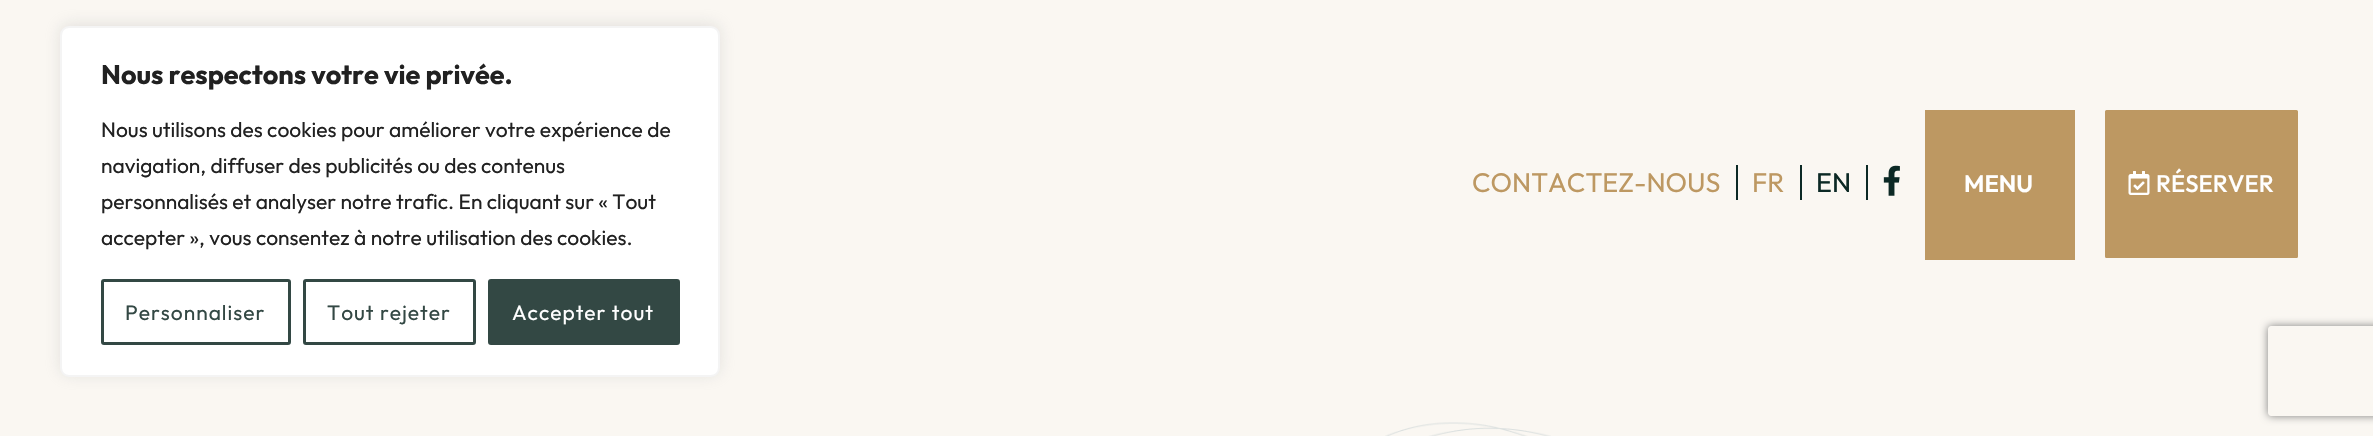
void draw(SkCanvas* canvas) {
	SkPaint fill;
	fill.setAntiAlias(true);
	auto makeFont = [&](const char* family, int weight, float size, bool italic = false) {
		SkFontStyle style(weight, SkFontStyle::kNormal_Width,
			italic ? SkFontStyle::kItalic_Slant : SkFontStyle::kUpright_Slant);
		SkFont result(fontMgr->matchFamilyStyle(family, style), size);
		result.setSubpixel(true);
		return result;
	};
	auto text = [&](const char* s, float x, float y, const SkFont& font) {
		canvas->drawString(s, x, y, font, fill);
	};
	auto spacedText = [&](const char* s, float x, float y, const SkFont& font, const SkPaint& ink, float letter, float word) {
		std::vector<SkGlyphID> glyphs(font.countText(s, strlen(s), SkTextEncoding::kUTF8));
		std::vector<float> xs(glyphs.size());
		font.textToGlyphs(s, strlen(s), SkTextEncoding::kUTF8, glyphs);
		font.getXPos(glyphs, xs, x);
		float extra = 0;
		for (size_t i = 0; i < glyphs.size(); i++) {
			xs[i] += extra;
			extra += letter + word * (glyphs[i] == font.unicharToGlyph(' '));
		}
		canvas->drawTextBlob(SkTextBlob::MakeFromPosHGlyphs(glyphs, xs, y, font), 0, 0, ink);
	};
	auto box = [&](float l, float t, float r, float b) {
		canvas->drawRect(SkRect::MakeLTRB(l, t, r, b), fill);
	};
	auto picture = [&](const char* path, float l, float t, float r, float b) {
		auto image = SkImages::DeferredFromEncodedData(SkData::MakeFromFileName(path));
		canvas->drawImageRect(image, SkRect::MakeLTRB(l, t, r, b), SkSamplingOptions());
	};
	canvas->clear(0xFFFAF7F2);
	fill.setColor(0x4DACABAB);
	fill.setMaskFilter(SkMaskFilter::MakeBlur(kNormal_SkBlurStyle, 7.5f));
	canvas->drawRoundRect(SkRect::MakeLTRB(60, 24, 720, 375), 9, 9, fill);
	fill.setMaskFilter(nullptr);
	fill.setColor(0xFFFFFFFF);
	canvas->drawRoundRect(SkRect::MakeLTRB(61, 27, 719, 376), 8, 8, fill);
	fill.setStyle(SkPaint::kStroke_Style);
	fill.setStrokeWidth(2);
	fill.setColor(0xFFF4F4F4);
	canvas->drawRoundRect(SkRect::MakeLTRB(61, 27, 719, 376), 8, 8, fill);
	fill.setStrokeWidth(3);
	fill.setColor(0xFF334844);
	canvas->drawRoundRect(SkRect::MakeLTRB(102.5f, 280.5f, 289.5f, 343.5f), 1.5f, 1.5f, fill);
	canvas->drawRoundRect(SkRect::MakeLTRB(304.5f, 280.5f, 474.5f, 343.5f), 1.5f, 1.5f, fill);
	fill.setStyle(SkPaint::kFill_Style);
	canvas->drawRoundRect(SkRect::MakeLTRB(489.5f, 280.5f, 678.5f, 343.5f), 1.5f, 1.5f, fill);
	fill.setStyle(SkPaint::kStroke_Style);
	canvas->drawRoundRect(SkRect::MakeLTRB(489.5f, 280.5f, 678.5f, 343.5f), 1.5f, 1.5f, fill);
	fill.setStyle(SkPaint::kFill_Style);
	fill.setColor(0xFF0C2925);
	box(1736, 165, 1738, 200);
	box(1800, 165, 1802, 200);
	box(1866, 165, 1868, 200);
	picture("image0.png", 1883, 165, 1900, 196);
	fill.setColor(0xFFBD9862);
	box(1925, 110, 2075, 260);
	canvas->drawRoundRect(SkRect::MakeLTRB(2106, 111, 2297, 257), 0.5f, 0.5f, fill);
	fill.setStyle(SkPaint::kStroke_Style);
	fill.setStrokeWidth(2);
	canvas->drawRoundRect(SkRect::MakeLTRB(2106, 111, 2297, 257), 0.5f, 0.5f, fill);
	picture("image1.png", 2128, 171, 2150, 195);
	picture("image2.png", 1385, 422, 1551, 436);
	canvas->save();
	canvas->clipPath(SkPathBuilder(SkPathFillType::kEvenOdd).moveTo(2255, 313).lineTo(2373, 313).lineTo(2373, 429).lineTo(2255, 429).close().moveTo(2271, 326).lineTo(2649, 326).cubicTo(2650.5f, 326, 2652, 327.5f, 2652, 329).lineTo(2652, 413).cubicTo(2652, 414.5f, 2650.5f, 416, 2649, 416).lineTo(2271, 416).cubicTo(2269.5f, 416, 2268, 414.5f, 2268, 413).lineTo(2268, 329).cubicTo(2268, 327.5f, 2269.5f, 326, 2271, 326).close().detach(), true);
	fill.setStyle(SkPaint::kFill_Style);
	fill.setColor(0xFF808080);
	fill.setMaskFilter(SkMaskFilter::MakeBlur(kNormal_SkBlurStyle, 4));
	canvas->drawRoundRect(SkRect::MakeLTRB(2268, 326, 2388, 416), 3, 3, fill);
	fill.setMaskFilter(nullptr);
	canvas->restore();
	auto font1 = makeFont("Outfit", 700, 27);
	fill.setColor(0xFF212121);
	text("Nous respectons votre vie privée.", 101, 84, font1);
	auto font2 = makeFont("Outfit", 400, 21);
	text("Nous utilisons des cookies pour améliorer votre expérience de", 101, 137, font2);
	text("navigation, diffuser des publicités ou des contenus", 101, 173, font2);
	text("personnalisés et analyser notre trafic. En cliquant sur « Tout", 101, 209, font2);
	text("accepter », vous consentez à notre utilisation des cookies.", 101, 245, font2);
	fill.setColor(0xFF334844);
	spacedText("Personnaliser", 125, 320, font2, fill, 1, 0);
	spacedText("Tout rejeter", 327, 320, font2, fill, 1, 0);
	fill.setColor(0xFFFFFFFF);
	spacedText("Accepter tout", 512, 320, font2, fill, 1, 0);
	auto font3 = makeFont("Outfit", 400, 27);
	fill.setColor(0xFFBD9862);
	text("CONTACTEZ-NOUS", 1472, 192, font3);
	text("FR", 1752, 192, font3);
	fill.setColor(0xFF0C2925);
	text("EN", 1816, 192, font3);
	auto font4 = makeFont("Outfit", 600, 24);
	fill.setColor(0xFFFFFFFF);
	text("MENU", 1964, 192, font4);
	auto font5 = makeFont("Outfit", 500, 24);
	text("RÉSERVER", 2156, 192, font5);
}
